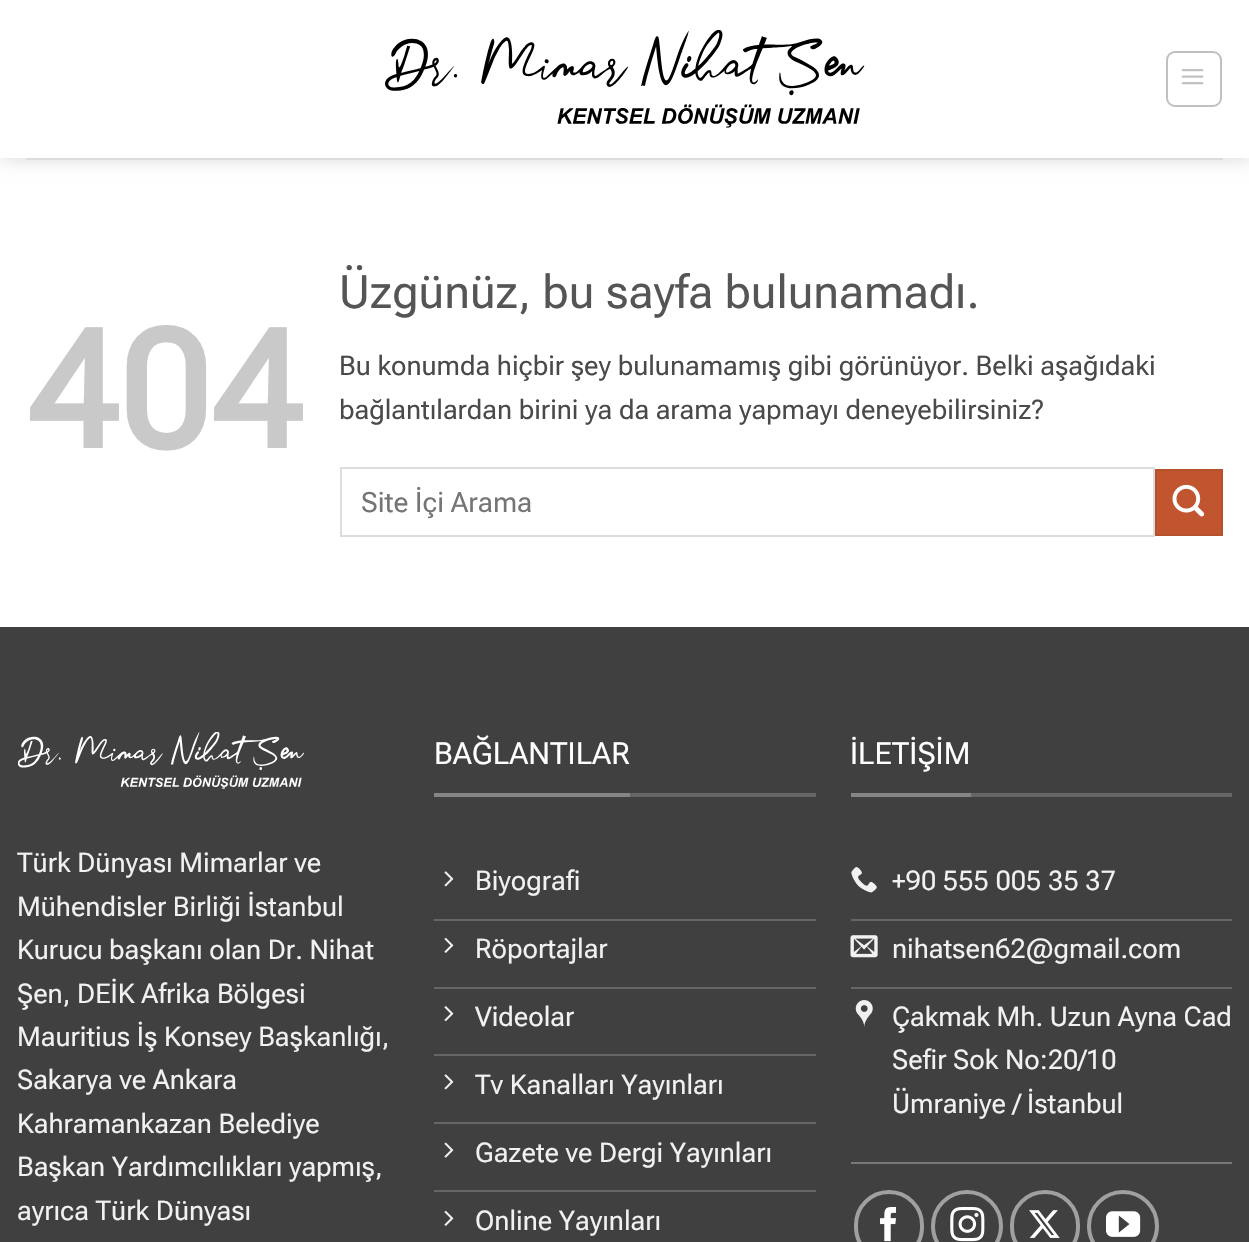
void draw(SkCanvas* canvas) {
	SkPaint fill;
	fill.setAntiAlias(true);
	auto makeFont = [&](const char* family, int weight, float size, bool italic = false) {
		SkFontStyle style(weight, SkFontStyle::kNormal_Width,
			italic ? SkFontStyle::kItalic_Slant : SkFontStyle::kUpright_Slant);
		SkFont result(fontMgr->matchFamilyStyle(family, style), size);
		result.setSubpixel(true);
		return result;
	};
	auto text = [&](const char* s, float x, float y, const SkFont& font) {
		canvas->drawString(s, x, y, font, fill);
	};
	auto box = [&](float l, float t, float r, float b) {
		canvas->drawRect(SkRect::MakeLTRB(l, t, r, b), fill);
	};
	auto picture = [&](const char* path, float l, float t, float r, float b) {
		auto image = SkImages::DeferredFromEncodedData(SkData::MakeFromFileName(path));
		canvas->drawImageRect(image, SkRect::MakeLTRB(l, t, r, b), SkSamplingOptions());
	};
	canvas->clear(0xFFFFFFFF);
	canvas->save();
	canvas->clipPath(SkPathBuilder(SkPathFillType::kEvenOdd).moveTo(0, 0).lineTo(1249, 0).lineTo(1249, 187).lineTo(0, 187).close().moveTo(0, 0).lineTo(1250, 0).lineTo(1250, 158).lineTo(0, 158).close().detach(), true);
	fill.setColor(0x26000000);
	fill.setMaskFilter(SkMaskFilter::MakeBlur(kNormal_SkBlurStyle, 9));
	canvas->drawRect(SkRect::MakeLTRB(2, 2, 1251, 159), fill);
	fill.setMaskFilter(nullptr);
	canvas->restore();
	picture("image0.png", 385, 30, 865, 128);
	fill.setStyle(SkPaint::kStroke_Style);
	fill.setStrokeWidth(2);
	fill.setColor(0xFFC0C0C0);
	canvas->drawRoundRect(SkRect::MakeLTRB(1167, 52, 1221, 106), 8, 8, fill);
	picture("image1.png", 1181, 69, 1204, 85);
	fill.setStyle(SkPaint::kFill_Style);
	fill.setColor(0xFFDCDCDC);
	box(26, 158, 1223, 160);
	fill.setColor(0xE6FFFFFF);
	box(0, 157, 1249, 158);
	fill.setStyle(SkPaint::kStroke_Style);
	fill.setColor(0xFFDDDDDD);
	canvas->drawRect(SkRect::MakeLTRB(341, 468, 1154, 536), fill);
	fill.setStyle(SkPaint::kFill_Style);
	fill.setColor(0xFFC05530);
	canvas->drawRect(SkRect::MakeLTRB(1156, 470, 1222, 535), fill);
	fill.setStyle(SkPaint::kStroke_Style);
	fill.setColor(0xFFB6512E);
	canvas->drawRect(SkRect::MakeLTRB(1156, 470, 1222, 535), fill);
	picture("image2.png", 1172, 484, 1205, 517);
	fill.setStyle(SkPaint::kFill_Style);
	fill.setColor(0xFF404040);
	box(0, 627, 1249, 1242);
	picture("image3.png", 18, 732, 305, 789);
	fill.setColor(0xFF666666);
	box(630, 793, 816, 797);
	fill.setColor(0xFF858585);
	box(434, 793, 630, 797);
	fill.setColor(0xFF666666);
	box(434, 919, 816, 921);
	picture("image4.png", 444, 871, 454, 887);
	box(434, 987, 816, 989);
	picture("image5.png", 444, 937, 454, 953);
	box(434, 1054, 816, 1056);
	picture("image6.png", 444, 1006, 454, 1022);
	box(434, 1122, 816, 1124);
	picture("image4.png", 444, 1074, 454, 1090);
	box(434, 1190, 816, 1192);
	picture("image7.png", 444, 1142, 454, 1158);
	picture("image5.png", 444, 1210, 454, 1226);
	box(971, 793, 1232, 797);
	fill.setColor(0xFF858585);
	box(851, 793, 971, 797);
	fill.setColor(0xFF666666);
	box(851, 919, 1232, 921);
	picture("image8.png", 851, 867, 877, 893);
	box(851, 987, 1232, 989);
	picture("image9.png", 850, 935, 878, 958);
	picture("image10.png", 855, 1000, 873, 1027);
	fill.setColor(0xFF797979);
	box(851, 1162, 1232, 1164);
	fill.setStyle(SkPaint::kStroke_Style);
	fill.setStrokeWidth(4);
	fill.setColor(0xFFA0A0A0);
	canvas->drawRoundRect(SkRect::MakeLTRB(856, 1192, 922, 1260), 33, 33, fill);
	picture("image11.png", 880, 1207, 896, 1242);
	canvas->drawCircle(967, 1226, 34, fill);
	picture("image12.png", 950, 1207, 985, 1242);
	canvas->drawRoundRect(SkRect::MakeLTRB(1012, 1192, 1078, 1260), 33, 33, fill);
	picture("image13.png", 1029, 1210, 1060, 1238);
	canvas->drawCircle(1123, 1226, 34, fill);
	picture("image14.png", 1106, 1211, 1141, 1237);
	auto font1 = makeFont("Roboto Flex", 700, 163);
	fill.setStyle(SkPaint::kFill_Style);
	fill.setColor(0xFFC9C9C9);
	text("404", 26, 448, font1);
	auto font2 = makeFont("Roboto Flex", 400, 46.2f);
	fill.setColor(0xFF555555);
	text("Üzgünüz, bu sayfa bulunamadı.", 339, 308, font2);
	auto font3 = makeFont("Roboto Flex", 400, 27.15f);
	fill.setColor(0xFF4A4A4A);
	text("Bu konumda hiçbir şey bulunamamış gibi görünüyor. Belki aşağıdaki", 339, 375, font3);
	text("bağlantılardan birini ya da arama yapmayı deneyebilirsiniz?", 339, 419, font3);
	auto font4 = makeFont("Roboto Flex", 400, 28);
	fill.setColor(0xFF757575);
	text("Site İçi Arama", 361, 512, font4);
	fill.setColor(0xFFF1F1F1);
	text("Türk Dünyası Mimarlar ve", 17, 872, font3);
	text("Mühendisler Birliği İstanbul", 17, 916, font3);
	text("Kurucu başkanı olan Dr. Nihat", 17, 959, font3);
	text("Şen, DEİK Afrika Bölgesi", 17, 1003, font3);
	text("Mauritius İş Konsey Başkanlığı,", 17, 1046, font3);
	text("Sakarya ve Ankara", 17, 1089, font3);
	text("Kahramankazan Belediye", 17, 1133, font3);
	text("Başkan Yardımcılıkları yapmış,", 17, 1176, font3);
	text("ayrıca Türk Dünyası", 17, 1220, font3);
	auto font5 = makeFont("Roboto Flex", 400, 30.5f);
	fill.setColor(0xFFFFFFFF);
	text("BAĞLANTILAR", 434, 764, font5);
	fill.setColor(0xFFF1F1F1);
	text("Biyografi", 475, 890, font3);
	text("Röportajlar", 475, 958, font3);
	text("Videolar", 475, 1026, font3);
	text("Tv Kanalları Yayınları", 475, 1094, font3);
	text("Gazete ve Dergi Yayınları", 475, 1162, font3);
	text("Online Yayınları", 475, 1230, font3);
	fill.setColor(0xFFFFFFFF);
	text("İLETİŞİM", 850, 764, font5);
	fill.setColor(0xFFF1F1F1);
	text("+90 555 005 35 37", 892, 890, font3);
	text("nihatsen62@gmail.com", 892, 958, font3);
	text("Çakmak Mh. Uzun Ayna Cad", 892, 1026, font3);
	text("Sefir Sok No:20/10", 892, 1069, font3);
	text("Ümraniye / İstanbul", 892, 1113, font3);
}
